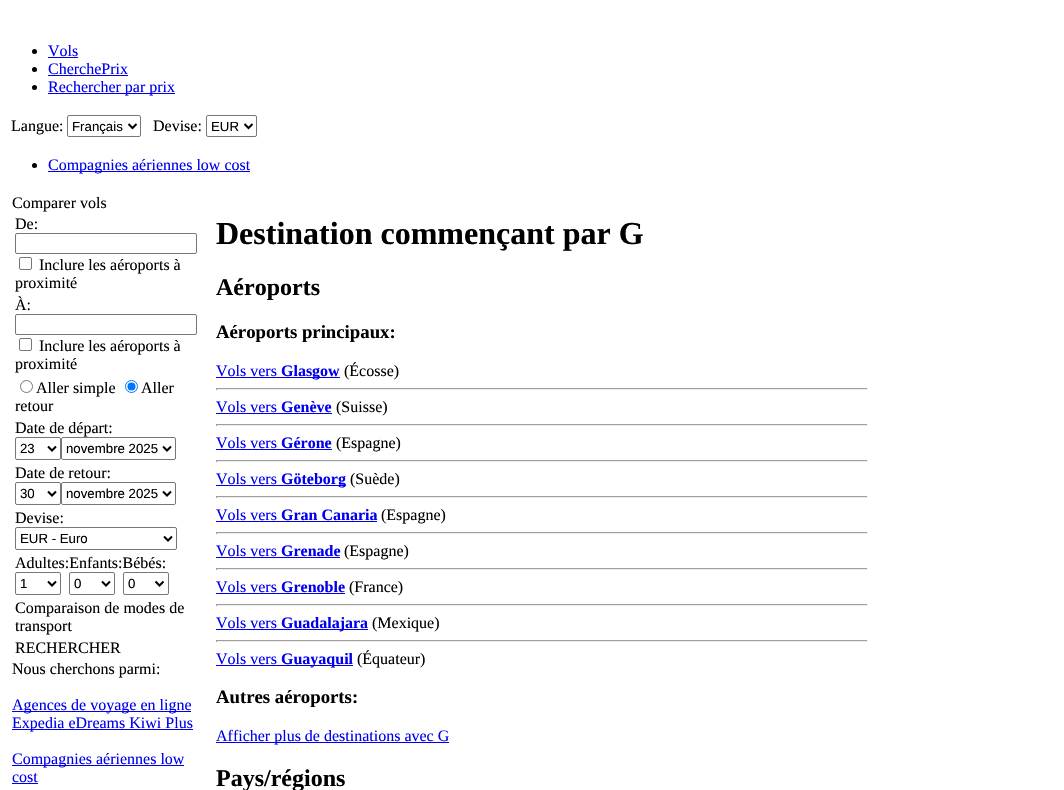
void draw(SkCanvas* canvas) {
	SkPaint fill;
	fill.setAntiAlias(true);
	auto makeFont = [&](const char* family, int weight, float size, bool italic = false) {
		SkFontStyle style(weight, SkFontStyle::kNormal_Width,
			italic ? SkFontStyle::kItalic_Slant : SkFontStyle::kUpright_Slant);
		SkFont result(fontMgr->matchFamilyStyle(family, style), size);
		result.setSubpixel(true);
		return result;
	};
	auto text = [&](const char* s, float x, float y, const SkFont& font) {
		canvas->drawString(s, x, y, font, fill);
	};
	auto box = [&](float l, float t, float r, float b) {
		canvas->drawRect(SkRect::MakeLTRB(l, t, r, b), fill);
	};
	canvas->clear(0xFFFFFFFF);
	fill.setColor(0xFF000000);
	canvas->drawCircle(34.5f, 51.5f, 2.5f, fill);
	fill.setColor(0xFF0000EE);
	box(48, 57, 78, 58);
	fill.setColor(0xFF000000);
	canvas->drawCircle(34.5f, 69.5f, 2.5f, fill);
	fill.setColor(0xFF0000EE);
	box(48, 75, 128, 76);
	fill.setColor(0xFF000000);
	canvas->drawCircle(34.5f, 87.5f, 2.5f, fill);
	fill.setColor(0xFF0000EE);
	box(48, 93, 175, 94);
	fill.setStyle(SkPaint::kStroke_Style);
	fill.setStrokeWidth(1);
	fill.setColor(0xFF767676);
	canvas->drawRoundRect(SkRect::MakeLTRB(67.5f, 115.5f, 140.5f, 136.5f), 1.5f, 1.5f, fill);
	fill.setStrokeWidth(2);
	fill.setColor(0xFF000000);
	canvas->drawPath(SkPathBuilder().moveTo(128.5f, 124).lineTo(132.5f, 128).lineTo(136.5f, 124).detach(), fill);
	fill.setStrokeWidth(1);
	fill.setColor(0xFF767676);
	canvas->drawRoundRect(SkRect::MakeLTRB(206.5f, 115.5f, 256.5f, 136.5f), 1.5f, 1.5f, fill);
	fill.setStrokeWidth(2);
	fill.setColor(0xFF000000);
	canvas->drawPath(SkPathBuilder().moveTo(244.5f, 124).lineTo(248.5f, 128).lineTo(252.5f, 124).detach(), fill);
	fill.setStyle(SkPaint::kFill_Style);
	canvas->drawCircle(34.5f, 165.5f, 2.5f, fill);
	fill.setColor(0xFF0000EE);
	box(48, 171, 250, 172);
	fill.setStyle(SkPaint::kStroke_Style);
	fill.setStrokeWidth(1);
	fill.setColor(0xFF767676);
	canvas->drawRoundRect(SkRect::MakeLTRB(15.5f, 233.5f, 196.5f, 253.5f), 1.5f, 1.5f, fill);
	canvas->drawRoundRect(SkRect::MakeLTRB(19.5f, 257.5f, 31.5f, 269.5f), 1.5f, 1.5f, fill);
	canvas->drawRoundRect(SkRect::MakeLTRB(15.5f, 314.5f, 196.5f, 334.5f), 1.5f, 1.5f, fill);
	canvas->drawRoundRect(SkRect::MakeLTRB(19.5f, 338.5f, 31.5f, 350.5f), 1.5f, 1.5f, fill);
	fill.setColor(0xFF0075FF);
	canvas->drawCircle(131.5f, 386.5f, 6, fill);
	fill.setStyle(SkPaint::kFill_Style);
	canvas->drawCircle(131.5f, 386.5f, 4, fill);
	fill.setStyle(SkPaint::kStroke_Style);
	fill.setColor(0xFF767676);
	canvas->drawCircle(26.5f, 386.5f, 6, fill);
	canvas->drawRoundRect(SkRect::MakeLTRB(15.5f, 437.5f, 60.5f, 459.5f), 1.5f, 1.5f, fill);
	fill.setStrokeWidth(2);
	fill.setColor(0xFF000000);
	canvas->drawPath(SkPathBuilder().moveTo(48, 446.5f).lineTo(52, 450.5f).lineTo(56, 446.5f).detach(), fill);
	fill.setStrokeWidth(1);
	fill.setColor(0xFF767676);
	canvas->drawRoundRect(SkRect::MakeLTRB(61.5f, 437.5f, 175.5f, 459.5f), 1.5f, 1.5f, fill);
	fill.setStrokeWidth(2);
	fill.setColor(0xFF000000);
	canvas->drawPath(SkPathBuilder().moveTo(163, 446.5f).lineTo(167, 450.5f).lineTo(171, 446.5f).detach(), fill);
	fill.setStrokeWidth(1);
	fill.setColor(0xFF767676);
	canvas->drawRoundRect(SkRect::MakeLTRB(15.5f, 482.5f, 60.5f, 504.5f), 1.5f, 1.5f, fill);
	fill.setStrokeWidth(2);
	fill.setColor(0xFF000000);
	canvas->drawPath(SkPathBuilder().moveTo(48, 491.5f).lineTo(52, 495.5f).lineTo(56, 491.5f).detach(), fill);
	fill.setStrokeWidth(1);
	fill.setColor(0xFF767676);
	canvas->drawRoundRect(SkRect::MakeLTRB(61.5f, 482.5f, 175.5f, 504.5f), 1.5f, 1.5f, fill);
	fill.setStrokeWidth(2);
	fill.setColor(0xFF000000);
	canvas->drawPath(SkPathBuilder().moveTo(163, 491.5f).lineTo(167, 495.5f).lineTo(171, 491.5f).detach(), fill);
	fill.setStrokeWidth(1);
	fill.setColor(0xFF767676);
	canvas->drawRoundRect(SkRect::MakeLTRB(15.5f, 527.5f, 176.5f, 549.5f), 1.5f, 1.5f, fill);
	fill.setStrokeWidth(2);
	fill.setColor(0xFF000000);
	canvas->drawPath(SkPathBuilder().moveTo(164, 536.5f).lineTo(168, 540.5f).lineTo(172, 536.5f).detach(), fill);
	fill.setStrokeWidth(1);
	fill.setColor(0xFF767676);
	canvas->drawRoundRect(SkRect::MakeLTRB(15.5f, 572.5f, 60.5f, 594.5f), 1.5f, 1.5f, fill);
	fill.setStrokeWidth(2);
	fill.setColor(0xFF000000);
	canvas->drawPath(SkPathBuilder().moveTo(48, 581.5f).lineTo(52, 585.5f).lineTo(56, 581.5f).detach(), fill);
	fill.setStrokeWidth(1);
	fill.setColor(0xFF767676);
	canvas->drawRoundRect(SkRect::MakeLTRB(69.5f, 572.5f, 114.5f, 594.5f), 1.5f, 1.5f, fill);
	fill.setStrokeWidth(2);
	fill.setColor(0xFF000000);
	canvas->drawPath(SkPathBuilder().moveTo(102, 581.5f).lineTo(106, 585.5f).lineTo(110, 581.5f).detach(), fill);
	fill.setStrokeWidth(1);
	fill.setColor(0xFF767676);
	canvas->drawRoundRect(SkRect::MakeLTRB(123.5f, 572.5f, 168.5f, 594.5f), 1.5f, 1.5f, fill);
	fill.setStrokeWidth(2);
	fill.setColor(0xFF000000);
	canvas->drawPath(SkPathBuilder().moveTo(155.5f, 581.5f).lineTo(159.5f, 585.5f).lineTo(163.5f, 581.5f).detach(), fill);
	fill.setStyle(SkPaint::kFill_Style);
	fill.setColor(0xFF0000EE);
	box(12, 711, 191, 712);
	box(12, 729, 193, 730);
	box(12, 765, 184, 766);
	box(12, 783, 38, 784);
	box(216, 377, 340, 378);
	fill.setColor(0xFF9F9F9F);
	box(216, 388, 868, 389);
	fill.setColor(0xFFEEEEEE);
	box(867, 388, 868, 390);
	box(216, 389, 868, 390);
	fill.setColor(0xFF9F9F9F);
	box(216, 388, 217, 390);
	fill.setColor(0xFF0000EE);
	box(216, 413, 332, 414);
	fill.setColor(0xFF9F9F9F);
	box(216, 424, 868, 425);
	fill.setColor(0xFFEEEEEE);
	box(867, 424, 868, 426);
	box(216, 425, 868, 426);
	fill.setColor(0xFF9F9F9F);
	box(216, 424, 217, 426);
	fill.setColor(0xFF0000EE);
	box(216, 449, 332, 450);
	fill.setColor(0xFF9F9F9F);
	box(216, 460, 868, 461);
	fill.setColor(0xFFEEEEEE);
	box(867, 460, 868, 462);
	box(216, 461, 868, 462);
	fill.setColor(0xFF9F9F9F);
	box(216, 460, 217, 462);
	fill.setColor(0xFF0000EE);
	box(216, 485, 346, 486);
	fill.setColor(0xFF9F9F9F);
	box(216, 496, 868, 497);
	fill.setColor(0xFFEEEEEE);
	box(867, 496, 868, 498);
	box(216, 497, 868, 498);
	fill.setColor(0xFF9F9F9F);
	box(216, 496, 217, 498);
	fill.setColor(0xFF0000EE);
	box(216, 521, 377, 522);
	fill.setColor(0xFF9F9F9F);
	box(216, 532, 868, 533);
	fill.setColor(0xFFEEEEEE);
	box(867, 532, 868, 534);
	box(216, 533, 868, 534);
	fill.setColor(0xFF9F9F9F);
	box(216, 532, 217, 534);
	fill.setColor(0xFF0000EE);
	box(216, 557, 340, 558);
	fill.setColor(0xFF9F9F9F);
	box(216, 568, 868, 569);
	fill.setColor(0xFFEEEEEE);
	box(867, 568, 868, 570);
	box(216, 569, 868, 570);
	fill.setColor(0xFF9F9F9F);
	box(216, 568, 217, 570);
	fill.setColor(0xFF0000EE);
	box(216, 593, 345, 594);
	fill.setColor(0xFF9F9F9F);
	box(216, 604, 868, 605);
	fill.setColor(0xFFEEEEEE);
	box(867, 604, 868, 606);
	box(216, 605, 868, 606);
	fill.setColor(0xFF9F9F9F);
	box(216, 604, 217, 606);
	fill.setColor(0xFF0000EE);
	box(216, 629, 368, 630);
	fill.setColor(0xFF9F9F9F);
	box(216, 640, 868, 641);
	fill.setColor(0xFFEEEEEE);
	box(867, 640, 868, 642);
	box(216, 641, 868, 642);
	fill.setColor(0xFF9F9F9F);
	box(216, 640, 217, 642);
	fill.setColor(0xFF0000EE);
	box(216, 665, 353, 666);
	box(216, 742, 449, 743);
	auto font1 = makeFont("Liberation Serif", 400, 16);
	text("Vols", 48, 56, font1);
	text("CherchePrix", 48, 74, font1);
	text("Rechercher par prix", 48, 92, font1);
	fill.setColor(0xFF000000);
	text("Langue:", 11, 131, font1);
	auto font2 = makeFont("Liberation Sans", 400, 13.25f);
	text("Français", 72, 131, font2);
	text("Devise:", 153, 131, font1);
	text("EUR", 211, 131, font2);
	fill.setColor(0xFF0000EE);
	text("Compagnies aériennes low cost", 48, 170, font1);
	fill.setColor(0xFF000000);
	text("Comparer vols", 12, 208, font1);
	text("De:", 15, 229, font1);
	text("Inclure les aéroports à", 39, 270, font1);
	text("proximité", 15, 288, font1);
	text("À:", 15, 310, font1);
	text("Inclure les aéroports à", 39, 351, font1);
	text("proximité", 15, 369, font1);
	text("Aller", 141, 393, font1);
	text("retour", 15, 411, font1);
	text("Aller simple", 36, 393, font1);
	text("Date de départ:", 15, 433, font1);
	text("23", 20, 453, font2);
	text("novembre 2025", 66, 453, font2);
	text("Date de retour:", 15, 478, font1);
	text("30", 20, 498, font2);
	text("novembre 2025", 66, 498, font2);
	text("Devise:", 15, 523, font1);
	text("EUR - Euro", 20, 543, font2);
	text("Adultes:Enfants:Bébés:", 15, 568, font1);
	text("1", 20, 588, font2);
	text("0", 74, 588, font2);
	text("0", 128, 588, font2);
	text("Comparaison de modes de", 15, 613, font1);
	text("transport", 15, 631, font1);
	text("RECHERCHER", 15, 653, font1);
	text("Nous cherchons parmi:", 12, 674, font1);
	fill.setColor(0xFF0000EE);
	text("Agences de voyage en ligne", 12, 710, font1);
	text("Expedia eDreams Kiwi Plus", 12, 728, font1);
	text("Compagnies aériennes low", 12, 764, font1);
	text("cost", 12, 782, font1);
	auto font3 = makeFont("Liberation Serif", 700, 32);
	fill.setColor(0xFF000000);
	text("Destination commençant par G", 216, 244, font3);
	auto font4 = makeFont("Liberation Serif", 700, 24);
	text("Aéroports", 216, 295, font4);
	auto font5 = makeFont("Liberation Serif", 700, 18.75f);
	text("Aéroports principaux:", 216, 338, font5);
	fill.setColor(0xFF0000EE);
	text("Vols vers", 216, 376, font1);
	auto font6 = makeFont("Liberation Serif", 700, 16);
	text("Glasgow", 281, 376, font6);
	fill.setColor(0xFF000000);
	text("(Écosse)", 344, 376, font1);
	fill.setColor(0xFF0000EE);
	text("Vols vers", 216, 412, font1);
	text("Genève", 281, 412, font6);
	fill.setColor(0xFF000000);
	text("(Suisse)", 336, 412, font1);
	fill.setColor(0xFF0000EE);
	text("Vols vers", 216, 448, font1);
	text("Gérone", 281, 448, font6);
	fill.setColor(0xFF000000);
	text("(Espagne)", 336, 448, font1);
	fill.setColor(0xFF0000EE);
	text("Vols vers", 216, 484, font1);
	text("Göteborg", 281, 484, font6);
	fill.setColor(0xFF000000);
	text("(Suède)", 350, 484, font1);
	fill.setColor(0xFF0000EE);
	text("Vols vers", 216, 520, font1);
	text("Gran Canaria", 281, 520, font6);
	fill.setColor(0xFF000000);
	text("(Espagne)", 381, 520, font1);
	fill.setColor(0xFF0000EE);
	text("Vols vers", 216, 556, font1);
	text("Grenade", 281, 556, font6);
	fill.setColor(0xFF000000);
	text("(Espagne)", 344, 556, font1);
	fill.setColor(0xFF0000EE);
	text("Vols vers", 216, 592, font1);
	text("Grenoble", 281, 592, font6);
	fill.setColor(0xFF000000);
	text("(France)", 349, 592, font1);
	fill.setColor(0xFF0000EE);
	text("Vols vers", 216, 628, font1);
	text("Guadalajara", 281, 628, font6);
	fill.setColor(0xFF000000);
	text("(Mexique)", 372, 628, font1);
	fill.setColor(0xFF0000EE);
	text("Vols vers", 216, 664, font1);
	text("Guayaquil", 281, 664, font6);
	fill.setColor(0xFF000000);
	text("(Équateur)", 357, 664, font1);
	text("Autres aéroports:", 216, 703, font5);
	fill.setColor(0xFF0000EE);
	text("Afficher plus de destinations avec G", 216, 741, font1);
	fill.setColor(0xFF000000);
	text("Pays/régions", 216, 786, font4);
}
